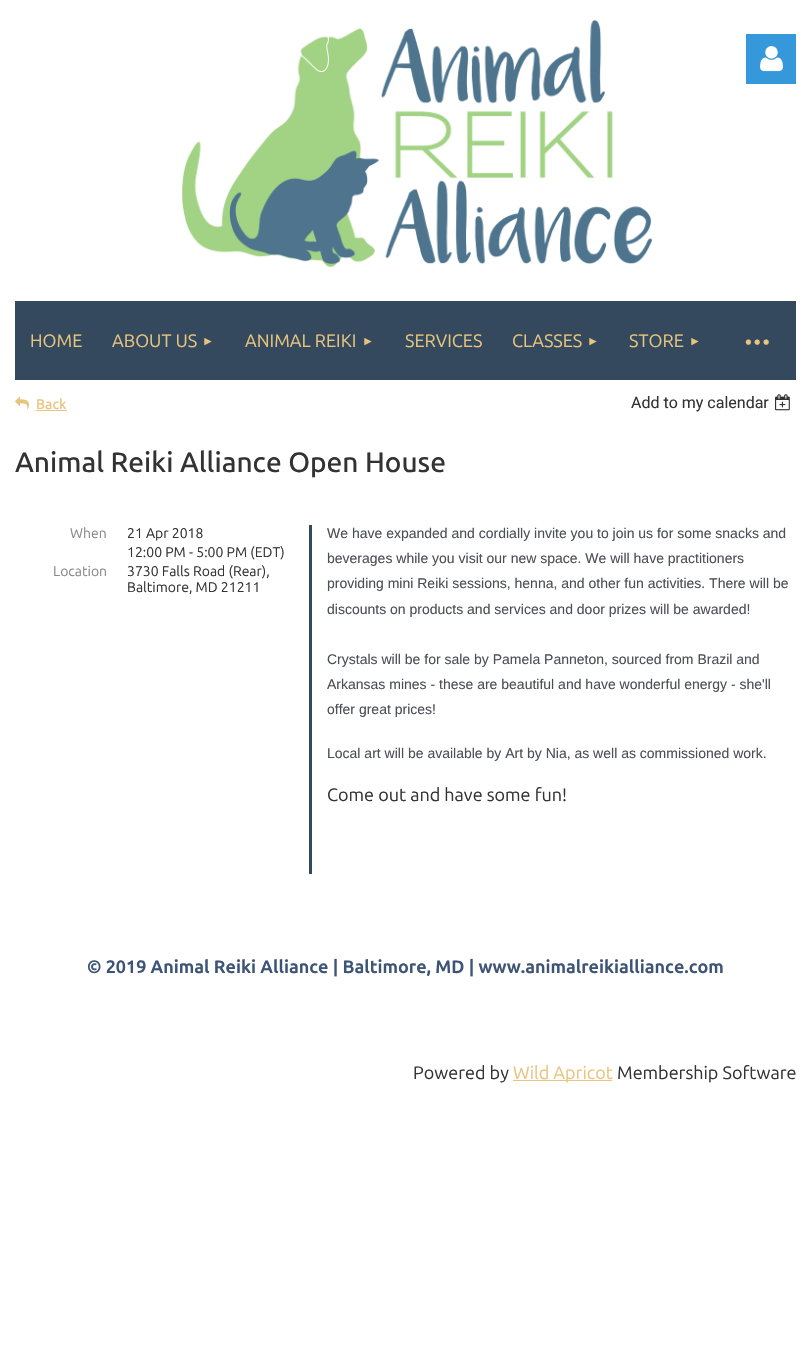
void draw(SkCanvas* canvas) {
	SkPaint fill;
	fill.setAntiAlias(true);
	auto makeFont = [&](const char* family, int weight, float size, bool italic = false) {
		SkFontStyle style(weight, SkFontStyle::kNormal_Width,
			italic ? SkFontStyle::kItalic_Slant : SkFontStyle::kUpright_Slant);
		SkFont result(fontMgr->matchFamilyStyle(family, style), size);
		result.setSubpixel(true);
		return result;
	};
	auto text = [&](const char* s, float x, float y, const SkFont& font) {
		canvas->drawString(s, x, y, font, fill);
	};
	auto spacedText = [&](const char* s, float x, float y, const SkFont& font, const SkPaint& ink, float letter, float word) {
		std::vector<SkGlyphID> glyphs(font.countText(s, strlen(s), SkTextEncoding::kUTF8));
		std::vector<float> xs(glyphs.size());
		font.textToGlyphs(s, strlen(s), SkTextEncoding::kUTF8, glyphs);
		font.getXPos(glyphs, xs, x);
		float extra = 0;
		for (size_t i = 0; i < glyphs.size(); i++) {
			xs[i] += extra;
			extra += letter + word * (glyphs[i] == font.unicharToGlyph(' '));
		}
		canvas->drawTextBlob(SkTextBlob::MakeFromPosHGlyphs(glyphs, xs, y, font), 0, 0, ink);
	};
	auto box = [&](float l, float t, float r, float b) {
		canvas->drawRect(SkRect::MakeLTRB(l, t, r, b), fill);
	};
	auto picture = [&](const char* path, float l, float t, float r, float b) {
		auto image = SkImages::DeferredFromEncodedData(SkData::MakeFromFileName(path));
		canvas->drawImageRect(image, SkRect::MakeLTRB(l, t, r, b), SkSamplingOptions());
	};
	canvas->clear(0xFFFFFFFF);
	picture("image0.png", 182, 20, 652, 267);
	fill.setColor(0xFF3498DB);
	box(746, 34, 796, 84);
	picture("image1.png", 760, 46, 783, 72);
	fill.setColor(0xFF34495E);
	box(15, 301, 796, 380);
	picture("image2.png", 15, 397, 29, 410);
	fill.setColor(0xFFE7C57F);
	box(36, 410, 67, 411);
	picture("image3.png", 775, 394, 790, 411);
	fill.setColor(0xFF34495E);
	box(309, 525, 312, 874);
	fill.setColor(0xFFE7C57F);
	box(513, 1080, 612, 1081);
	auto font1 = makeFont("Ubuntu", 400, 18);
	text("HOME", 30, 347, font1);
	text("ABOUT US", 112, 347, font1);
	auto font2 = makeFont("Liberation Sans", 400, 12);
	text("►", 202, 345, font2);
	text("ANIMAL REIKI", 245, 347, font1);
	text("►", 362, 345, font2);
	text("SERVICES", 405, 347, font1);
	text("CLASSES", 512, 347, font1);
	text("►", 587, 345, font2);
	text("STORE", 629, 347, font1);
	text("►", 689, 345, font2);
	auto font3 = makeFont("Ubuntu", 400, 44);
	spacedText("···", 743, 355, font3, fill, -2, 0);
	auto font4 = makeFont("Ubuntu", 500, 14);
	text("Back", 36, 409, font4);
	auto font5 = makeFont("Roboto", 400, 16);
	fill.setColor(0xFF333333);
	text("Add to my calendar", 631, 408, font5);
	auto font6 = makeFont("Ubuntu", 500, 28);
	text("Animal Reiki Alliance Open House", 15, 472, font6);
	auto font7 = makeFont("Ubuntu", 400, 14);
	fill.setColor(0xFF898989);
	text("When", 70, 538, font7);
	fill.setColor(0xFF333333);
	text("21 Apr 2018", 127, 538, font7);
	text("12:00 PM - 5:00 PM (EDT)", 127, 557, font7);
	fill.setColor(0xFF898989);
	text("Location", 53, 576, font7);
	fill.setColor(0xFF333333);
	text("3730 Falls Road (Rear),", 127, 576, font7);
	text("Baltimore, MD 21211", 127, 592, font7);
	auto font8 = makeFont("Liberation Sans", 400, 14);
	fill.setColor(0xFF4B4F56);
	text("We have expanded and cordially invite you to join us for some snacks and", 327, 538, font8);
	text("beverages while you visit our new space. We will have practitioners", 327, 563, font8);
	text("providing mini Reiki sessions, henna, and other fun activities. There will be", 327, 588, font8);
	text("discounts on products and services and door prizes will be awarded!", 327, 614, font8);
	text("Crystals will be for sale by Pamela Panneton, sourced from Brazil and", 327, 664, font8);
	text("Arkansas mines - these are beautiful and have wonderful energy - she'll", 327, 689, font8);
	text("offer great prices!", 327, 714, font8);
	text("Local art will be available by Art by Nia, as well as commissioned work.", 327, 758, font8);
	fill.setColor(0xFF333333);
	text("Come out and have some fun!", 327, 801, font1);
	auto font9 = makeFont("Ubuntu", 700, 18);
	fill.setColor(0xFF3D5476);
	text("© 2019 Animal Reiki Alliance | Baltimore, MD | www.animalreikialliance.com", 87, 973, font9);
	fill.setColor(0xFF333333);
	text("Powered by", 413, 1079, font1);
	fill.setColor(0xFFE7C57F);
	text("Wild Apricot", 513, 1079, font1);
	fill.setColor(0xFF333333);
	text("Membership Software", 617, 1079, font1);
}
